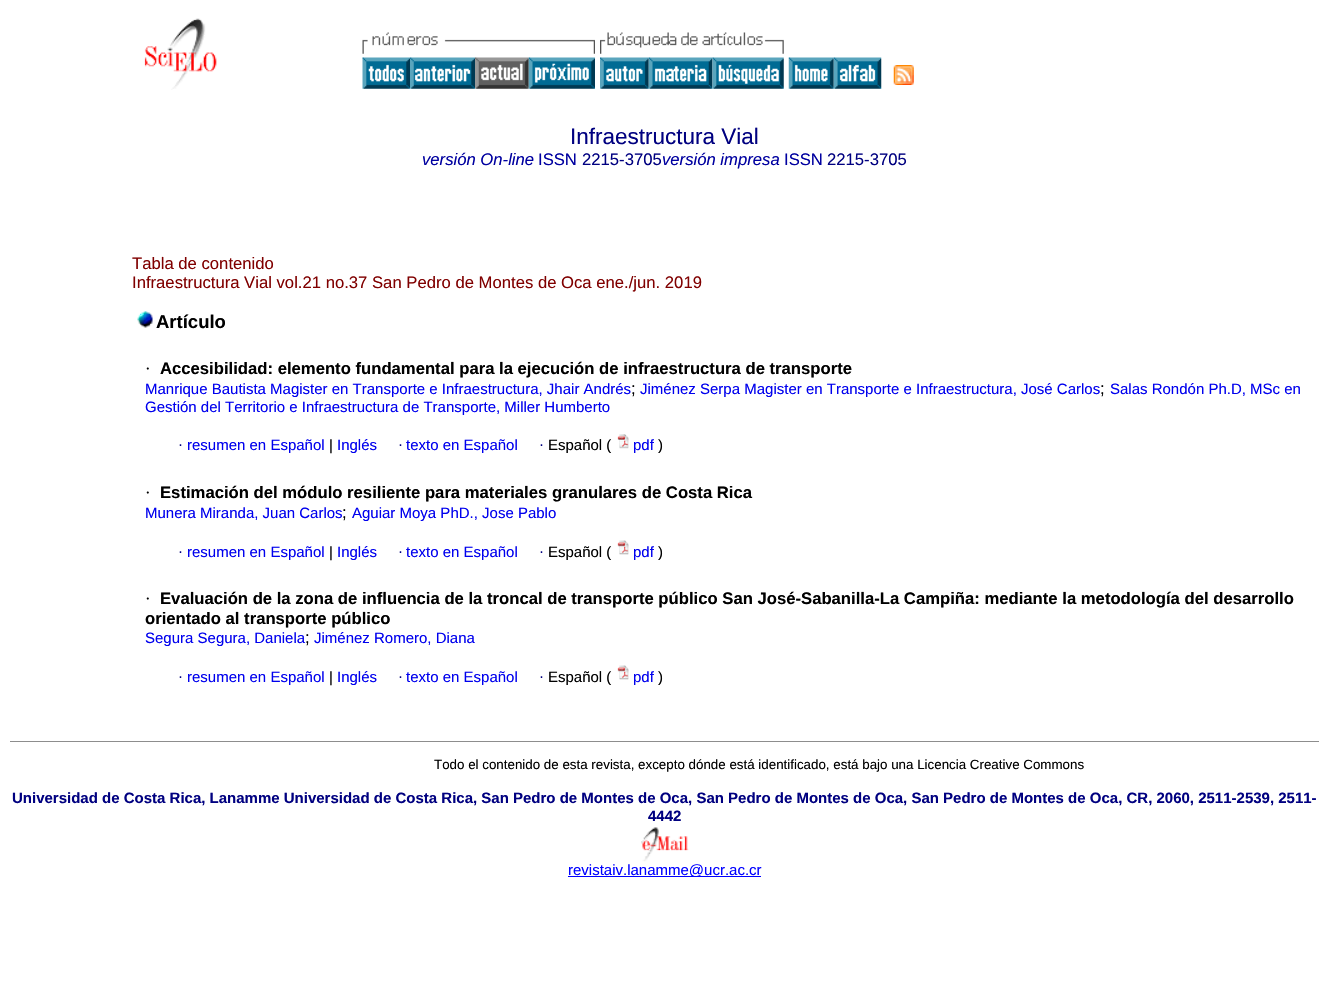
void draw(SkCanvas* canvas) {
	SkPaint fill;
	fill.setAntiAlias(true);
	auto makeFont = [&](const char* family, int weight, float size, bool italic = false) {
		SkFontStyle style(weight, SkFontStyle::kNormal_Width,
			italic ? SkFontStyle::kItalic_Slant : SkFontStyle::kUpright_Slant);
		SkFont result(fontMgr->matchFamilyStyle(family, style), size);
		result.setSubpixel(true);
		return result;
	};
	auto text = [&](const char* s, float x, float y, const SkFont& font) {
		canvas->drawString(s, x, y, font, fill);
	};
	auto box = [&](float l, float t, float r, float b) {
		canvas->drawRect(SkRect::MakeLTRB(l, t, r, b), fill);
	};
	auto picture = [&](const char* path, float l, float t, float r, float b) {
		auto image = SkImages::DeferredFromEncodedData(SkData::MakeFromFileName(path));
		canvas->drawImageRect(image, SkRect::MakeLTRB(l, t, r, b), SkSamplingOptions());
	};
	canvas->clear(0xFFFFFFFF);
	picture("image0.png", 144, 18, 217, 90);
	picture("image1.png", 362, 32, 595, 54);
	picture("image2.png", 600, 32, 784, 54);
	picture("image3.png", 362, 57, 410, 89);
	picture("image4.png", 410, 57, 475, 89);
	picture("image5.png", 475, 57, 529, 89);
	picture("image6.png", 528, 57, 595, 89);
	picture("image7.png", 600, 57, 649, 89);
	picture("image8.png", 648, 57, 713, 89);
	picture("image9.png", 712, 57, 784, 89);
	picture("image10.png", 788, 57, 834, 89);
	picture("image11.png", 833, 57, 882, 89);
	picture("image12.png", 893, 65, 914, 85);
	fill.setColor(0xFF8D8D8D);
	box(10, 741, 1319, 742);
	picture("image13.png", 137, 311, 153, 328);
	picture("image14.png", 617, 434, 629, 449);
	picture("image15.png", 617, 540, 629, 555);
	picture("image15.png", 617, 665, 629, 680);
	picture("image16.png", 641, 827, 689, 862);
	fill.setColor(0xFF0000FF);
	box(568, 876, 761, 877);
	auto font1 = makeFont("Liberation Sans", 400, 22.5f);
	fill.setColor(0xFF000080);
	text("Infraestructura Vial", 570, 144, font1);
	auto font2 = makeFont("Liberation Sans", 400, 16.67f, true);
	fill.setColor(0xFF0000A0);
	text("versión On-line", 422, 165, font2);
	auto font3 = makeFont("Liberation Sans", 400, 16.67f);
	text("ISSN", 538, 165, font3);
	fill.setColor(0xFF000080);
	text("2215-3705", 582, 165, font3);
	fill.setColor(0xFF0000A0);
	text("versión impresa", 662, 165, font2);
	text("ISSN", 784, 165, font3);
	fill.setColor(0xFF000080);
	text("2215-3705", 827, 165, font3);
	fill.setColor(0xFF800000);
	text("Tabla de contenido", 132, 269, font3);
	text("Infraestructura Vial vol.21 no.37 San Pedro de Montes de Oca ene./jun. 2019", 132, 288, font3);
	auto font4 = makeFont("Liberation Sans", 700, 18.5f);
	fill.setColor(0xFF000000);
	text("Artículo", 156, 328, font4);
	auto font5 = makeFont("Liberation Serif", 400, 16.67f);
	text("·", 145, 374, font5);
	auto font6 = makeFont("Liberation Sans", 700, 16.67f);
	text("Accesibilidad: elemento fundamental para la ejecución de infraestructura de transporte", 160, 374, font6);
	auto font7 = makeFont("Liberation Sans", 400, 15);
	fill.setColor(0xFF0000EE);
	text("Manrique Bautista Magister en Transporte e Infraestructura, Jhair Andrés", 145, 394, font7);
	fill.setColor(0xFF000000);
	text(";", 631, 394, font3);
	fill.setColor(0xFF0000EE);
	text("Jiménez Serpa Magister en Transporte e Infraestructura, José Carlos", 640, 394, font7);
	fill.setColor(0xFF000000);
	text(";", 1100, 394, font3);
	fill.setColor(0xFF0000EE);
	text("Salas Rondón Ph.D, MSc en", 1110, 394, font7);
	text("Gestión del Territorio e Infraestructura de Transporte, Miller Humberto", 145, 412, font7);
	auto font8 = makeFont("Liberation Serif", 400, 15);
	fill.setColor(0xFF000080);
	text("·", 178, 450, font8);
	fill.setColor(0xFF0000EE);
	text("resumen en Español", 187, 450, font7);
	fill.setColor(0xFF000000);
	text("|", 329, 450, font7);
	fill.setColor(0xFF0000EE);
	text("Inglés", 337, 450, font7);
	fill.setColor(0xFF000080);
	text("·", 398, 450, font8);
	fill.setColor(0xFF0000EE);
	text("texto en Español", 406, 450, font7);
	fill.setColor(0xFF000080);
	text("·", 539, 450, font8);
	fill.setColor(0xFF000000);
	text("Español (", 548, 450, font7);
	fill.setColor(0xFF0000EE);
	text("pdf", 633, 450, font7);
	fill.setColor(0xFF000000);
	text(")", 658, 450, font7);
	text("·", 145, 498, font5);
	text("Estimación del módulo resiliente para materiales granulares de Costa Rica", 160, 498, font6);
	fill.setColor(0xFF0000EE);
	text("Munera Miranda, Juan Carlos", 145, 518, font7);
	fill.setColor(0xFF000000);
	text(";", 342, 518, font3);
	fill.setColor(0xFF0000EE);
	text("Aguiar Moya PhD., Jose Pablo", 352, 518, font7);
	fill.setColor(0xFF000080);
	text("·", 178, 557, font8);
	fill.setColor(0xFF0000EE);
	text("resumen en Español", 187, 557, font7);
	fill.setColor(0xFF000000);
	text("|", 329, 557, font7);
	fill.setColor(0xFF0000EE);
	text("Inglés", 337, 557, font7);
	fill.setColor(0xFF000080);
	text("·", 398, 557, font8);
	fill.setColor(0xFF0000EE);
	text("texto en Español", 406, 557, font7);
	fill.setColor(0xFF000080);
	text("·", 539, 557, font8);
	fill.setColor(0xFF000000);
	text("Español (", 548, 557, font7);
	fill.setColor(0xFF0000EE);
	text("pdf", 633, 557, font7);
	fill.setColor(0xFF000000);
	text(")", 658, 557, font7);
	text("·", 145, 604, font5);
	text("Evaluación de la zona de influencia de la troncal de transporte público San José-Sabanilla-La Campiña: mediante la metodología del desarrollo", 160, 604, font6);
	text("orientado al transporte público", 145, 624, font6);
	fill.setColor(0xFF0000EE);
	text("Segura Segura, Daniela", 145, 643, font7);
	fill.setColor(0xFF000000);
	text(";", 305, 643, font3);
	fill.setColor(0xFF0000EE);
	text("Jiménez Romero, Diana", 314, 643, font7);
	fill.setColor(0xFF000080);
	text("·", 178, 682, font8);
	fill.setColor(0xFF0000EE);
	text("resumen en Español", 187, 682, font7);
	fill.setColor(0xFF000000);
	text("|", 329, 682, font7);
	fill.setColor(0xFF0000EE);
	text("Inglés", 337, 682, font7);
	fill.setColor(0xFF000080);
	text("·", 398, 682, font8);
	fill.setColor(0xFF0000EE);
	text("texto en Español", 406, 682, font7);
	fill.setColor(0xFF000080);
	text("·", 539, 682, font8);
	fill.setColor(0xFF000000);
	text("Español (", 548, 682, font7);
	fill.setColor(0xFF0000EE);
	text("pdf", 633, 682, font7);
	fill.setColor(0xFF000000);
	text(")", 658, 682, font7);
	auto font9 = makeFont("Liberation Sans", 400, 13.35f);
	text("Todo el contenido de esta revista, excepto dónde está identificado, está bajo una Licencia Creative Commons", 434, 769, font9);
	auto font10 = makeFont("Liberation Sans", 700, 15);
	fill.setColor(0xFF000080);
	text("Universidad de Costa Rica, Lanamme Universidad de Costa Rica, San Pedro de Montes de Oca, San Pedro de Montes de Oca, San Pedro de Montes de Oca, CR, 2060, 2511-2539, 2511-", 12, 803, font10);
	text("4442", 648, 821, font10);
	fill.setColor(0xFF0000FF);
	text("revistaiv.lanamme@ucr.ac.cr", 568, 875, font7);
}
